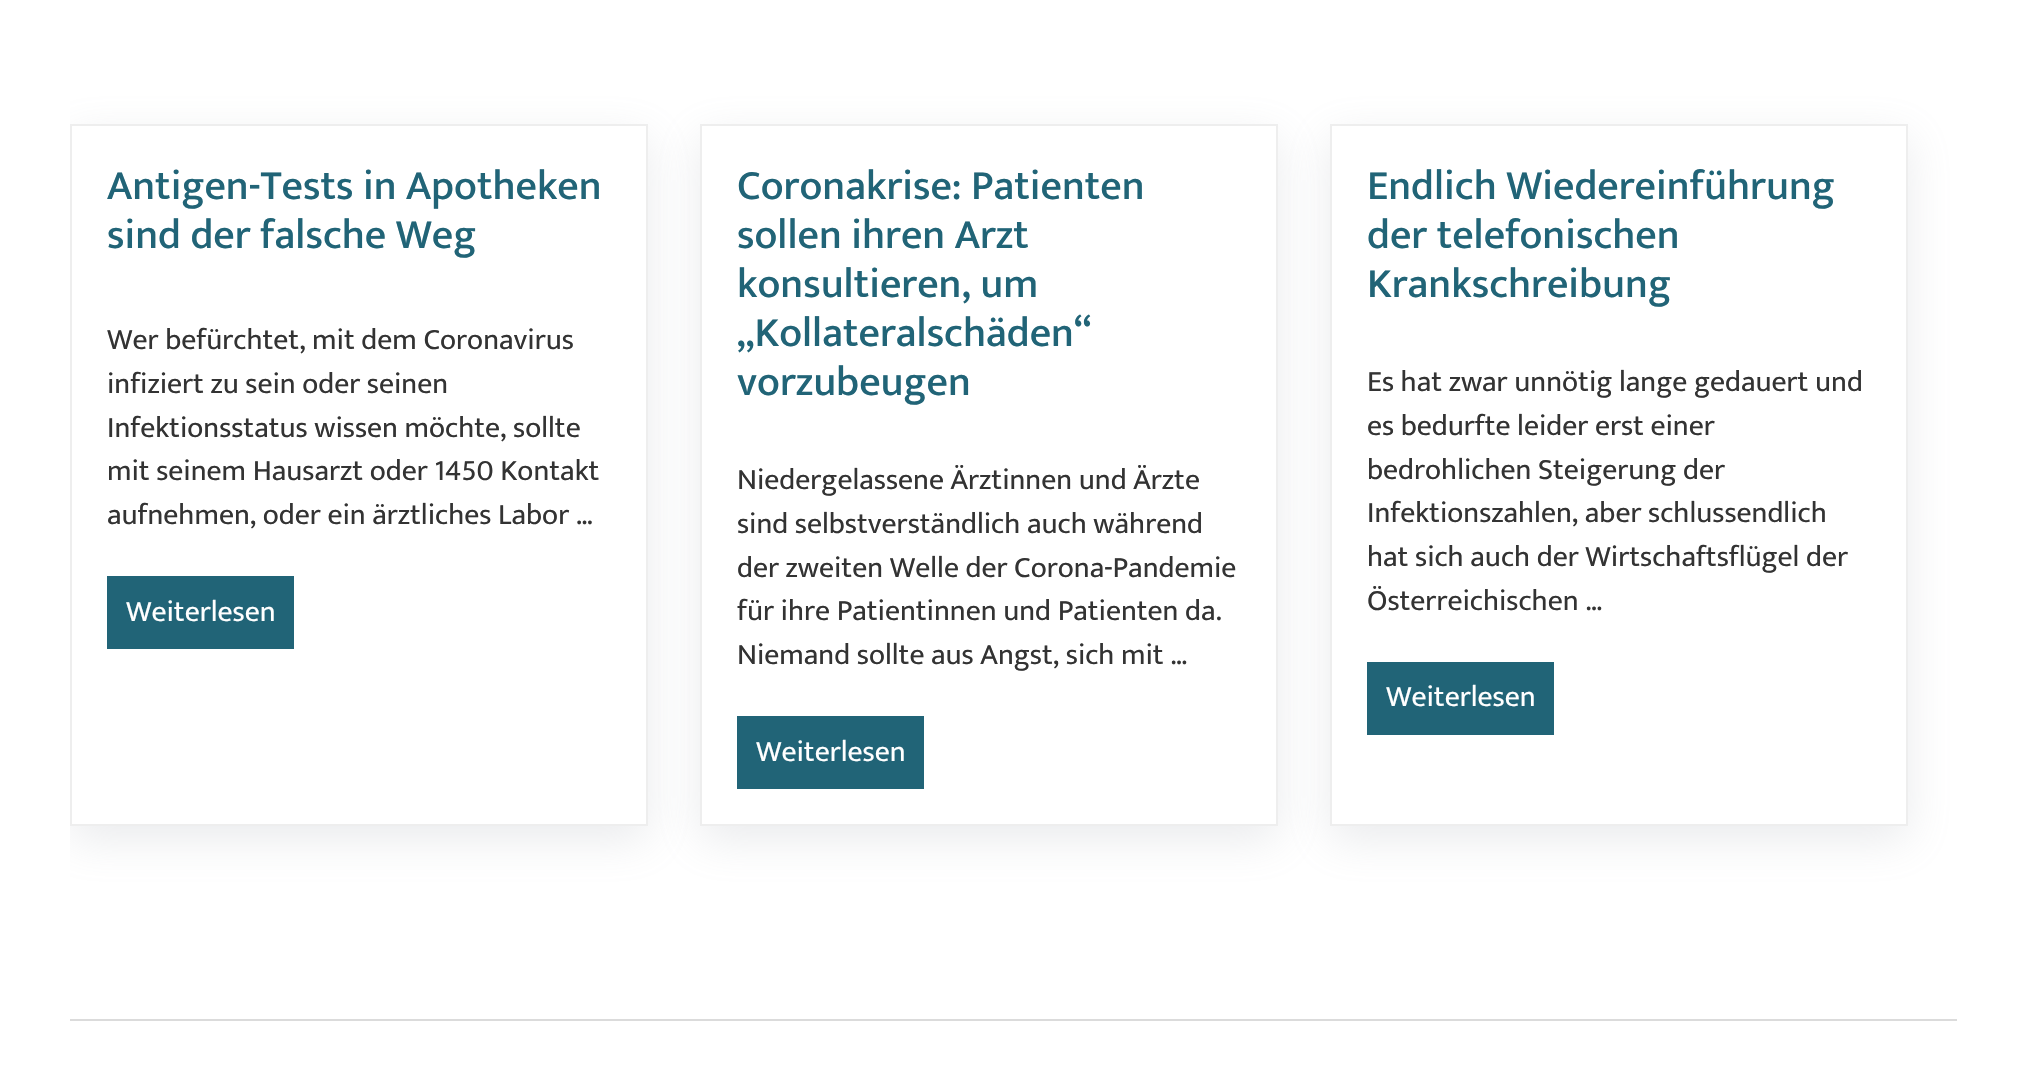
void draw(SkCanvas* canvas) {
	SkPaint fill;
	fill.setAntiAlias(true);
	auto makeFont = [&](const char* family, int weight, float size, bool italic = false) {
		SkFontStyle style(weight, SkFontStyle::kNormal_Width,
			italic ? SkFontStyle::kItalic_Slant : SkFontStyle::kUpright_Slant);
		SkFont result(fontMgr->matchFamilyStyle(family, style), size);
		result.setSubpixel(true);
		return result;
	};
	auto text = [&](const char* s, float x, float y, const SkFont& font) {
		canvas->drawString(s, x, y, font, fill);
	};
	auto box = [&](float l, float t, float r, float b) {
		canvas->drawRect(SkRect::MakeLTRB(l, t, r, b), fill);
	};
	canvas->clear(0xFFFFFFFF);
	canvas->save();
	canvas->clipRect(SkRect::MakeLTRB(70, 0, 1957, 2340));
	canvas->clipPath(SkPathBuilder(SkPathFillType::kEvenOdd).moveTo(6, 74).lineTo(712, 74).lineTo(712, 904).lineTo(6, 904).close().moveTo(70, 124).lineTo(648, 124).lineTo(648, 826).lineTo(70, 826).close().detach(), true);
	fill.setColor(0x33959DA5);
	fill.setMaskFilter(SkMaskFilter::MakeBlur(kNormal_SkBlurStyle, 21));
	canvas->drawRect(SkRect::MakeLTRB(70, 138, 648, 840), fill);
	fill.setMaskFilter(nullptr);
	canvas->restore();
	fill.setStyle(SkPaint::kStroke_Style);
	fill.setStrokeWidth(2);
	fill.setColor(0xFFEEEEEE);
	canvas->drawRect(SkRect::MakeLTRB(71, 125, 647, 825), fill);
	fill.setStyle(SkPaint::kFill_Style);
	fill.setColor(0xFF216477);
	box(107, 576, 294, 649);
	canvas->save();
	canvas->clipPath(SkPathBuilder(SkPathFillType::kEvenOdd).moveTo(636, 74).lineTo(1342, 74).lineTo(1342, 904).lineTo(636, 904).close().moveTo(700, 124).lineTo(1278, 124).lineTo(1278, 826).lineTo(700, 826).close().detach(), true);
	fill.setColor(0x33959DA5);
	fill.setMaskFilter(SkMaskFilter::MakeBlur(kNormal_SkBlurStyle, 21));
	canvas->drawRect(SkRect::MakeLTRB(700, 138, 1278, 840), fill);
	fill.setMaskFilter(nullptr);
	canvas->restore();
	fill.setStyle(SkPaint::kStroke_Style);
	fill.setColor(0xFFEEEEEE);
	canvas->drawRect(SkRect::MakeLTRB(701, 125, 1277, 825), fill);
	fill.setStyle(SkPaint::kFill_Style);
	fill.setColor(0xFF216477);
	box(737, 716, 924, 789);
	canvas->save();
	canvas->clipPath(SkPathBuilder(SkPathFillType::kEvenOdd).moveTo(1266, 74).lineTo(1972, 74).lineTo(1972, 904).lineTo(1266, 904).close().moveTo(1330, 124).lineTo(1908, 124).lineTo(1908, 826).lineTo(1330, 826).close().detach(), true);
	fill.setColor(0x33959DA5);
	fill.setMaskFilter(SkMaskFilter::MakeBlur(kNormal_SkBlurStyle, 21));
	canvas->drawRect(SkRect::MakeLTRB(1330, 138, 1908, 840), fill);
	fill.setMaskFilter(nullptr);
	canvas->restore();
	fill.setStyle(SkPaint::kStroke_Style);
	fill.setColor(0xFFEEEEEE);
	canvas->drawRect(SkRect::MakeLTRB(1331, 125, 1907, 825), fill);
	fill.setStyle(SkPaint::kFill_Style);
	fill.setColor(0xFF216477);
	box(1367, 662, 1554, 735);
	fill.setColor(0xFFDBDBDB);
	box(70, 1019, 1957, 1021);
	auto font1 = makeFont("Mukta", 500, 42);
	fill.setColor(0xFF216477);
	text("Antigen-Tests in Apotheken", 107, 199, font1);
	text("sind der falsche Weg", 107, 248, font1);
	auto font2 = makeFont("Mukta", 400, 29.75f);
	fill.setColor(0xFF333333);
	text("Wer befürchtet, mit dem Coronavirus", 107, 349, font2);
	text("infiziert zu sein oder seinen", 107, 393, font2);
	text("Infektionsstatus wissen möchte, sollte", 107, 437, font2);
	text("mit seinem Hausarzt oder 1450 Kontakt", 107, 480, font2);
	text("aufnehmen, oder ein ärztliches Labor …", 107, 524, font2);
	fill.setColor(0xFFFFFFFF);
	text("Weiterlesen", 126, 621, font2);
	fill.setColor(0xFF216477);
	text("Coronakrise: Patienten", 737, 199, font1);
	text("sollen ihren Arzt", 737, 248, font1);
	text("konsultieren, um", 737, 297, font1);
	text("„Kollateralschäden“", 737, 346, font1);
	text("vorzubeugen", 737, 395, font1);
	fill.setColor(0xFF333333);
	text("Niedergelassene Ärztinnen und Ärzte", 737, 489, font2);
	text("sind selbstverständlich auch während", 737, 533, font2);
	text("der zweiten Welle der Corona-Pandemie", 737, 577, font2);
	text("für ihre Patientinnen und Patienten da.", 737, 620, font2);
	text("Niemand sollte aus Angst, sich mit …", 737, 664, font2);
	fill.setColor(0xFFFFFFFF);
	text("Weiterlesen", 756, 761, font2);
	fill.setColor(0xFF216477);
	text("Endlich Wiedereinführung", 1367, 199, font1);
	text("der telefonischen", 1367, 248, font1);
	text("Krankschreibung", 1367, 297, font1);
	fill.setColor(0xFF333333);
	text("Es hat zwar unnötig lange gedauert und", 1367, 391, font2);
	text("es bedurfte leider erst einer", 1367, 435, font2);
	text("bedrohlichen Steigerung der", 1367, 479, font2);
	text("Infektionszahlen, aber schlussendlich", 1367, 522, font2);
	text("hat sich auch der Wirtschaftsflügel der", 1367, 566, font2);
	text("Österreichischen …", 1367, 610, font2);
	fill.setColor(0xFFFFFFFF);
	text("Weiterlesen", 1386, 706, font2);
}
